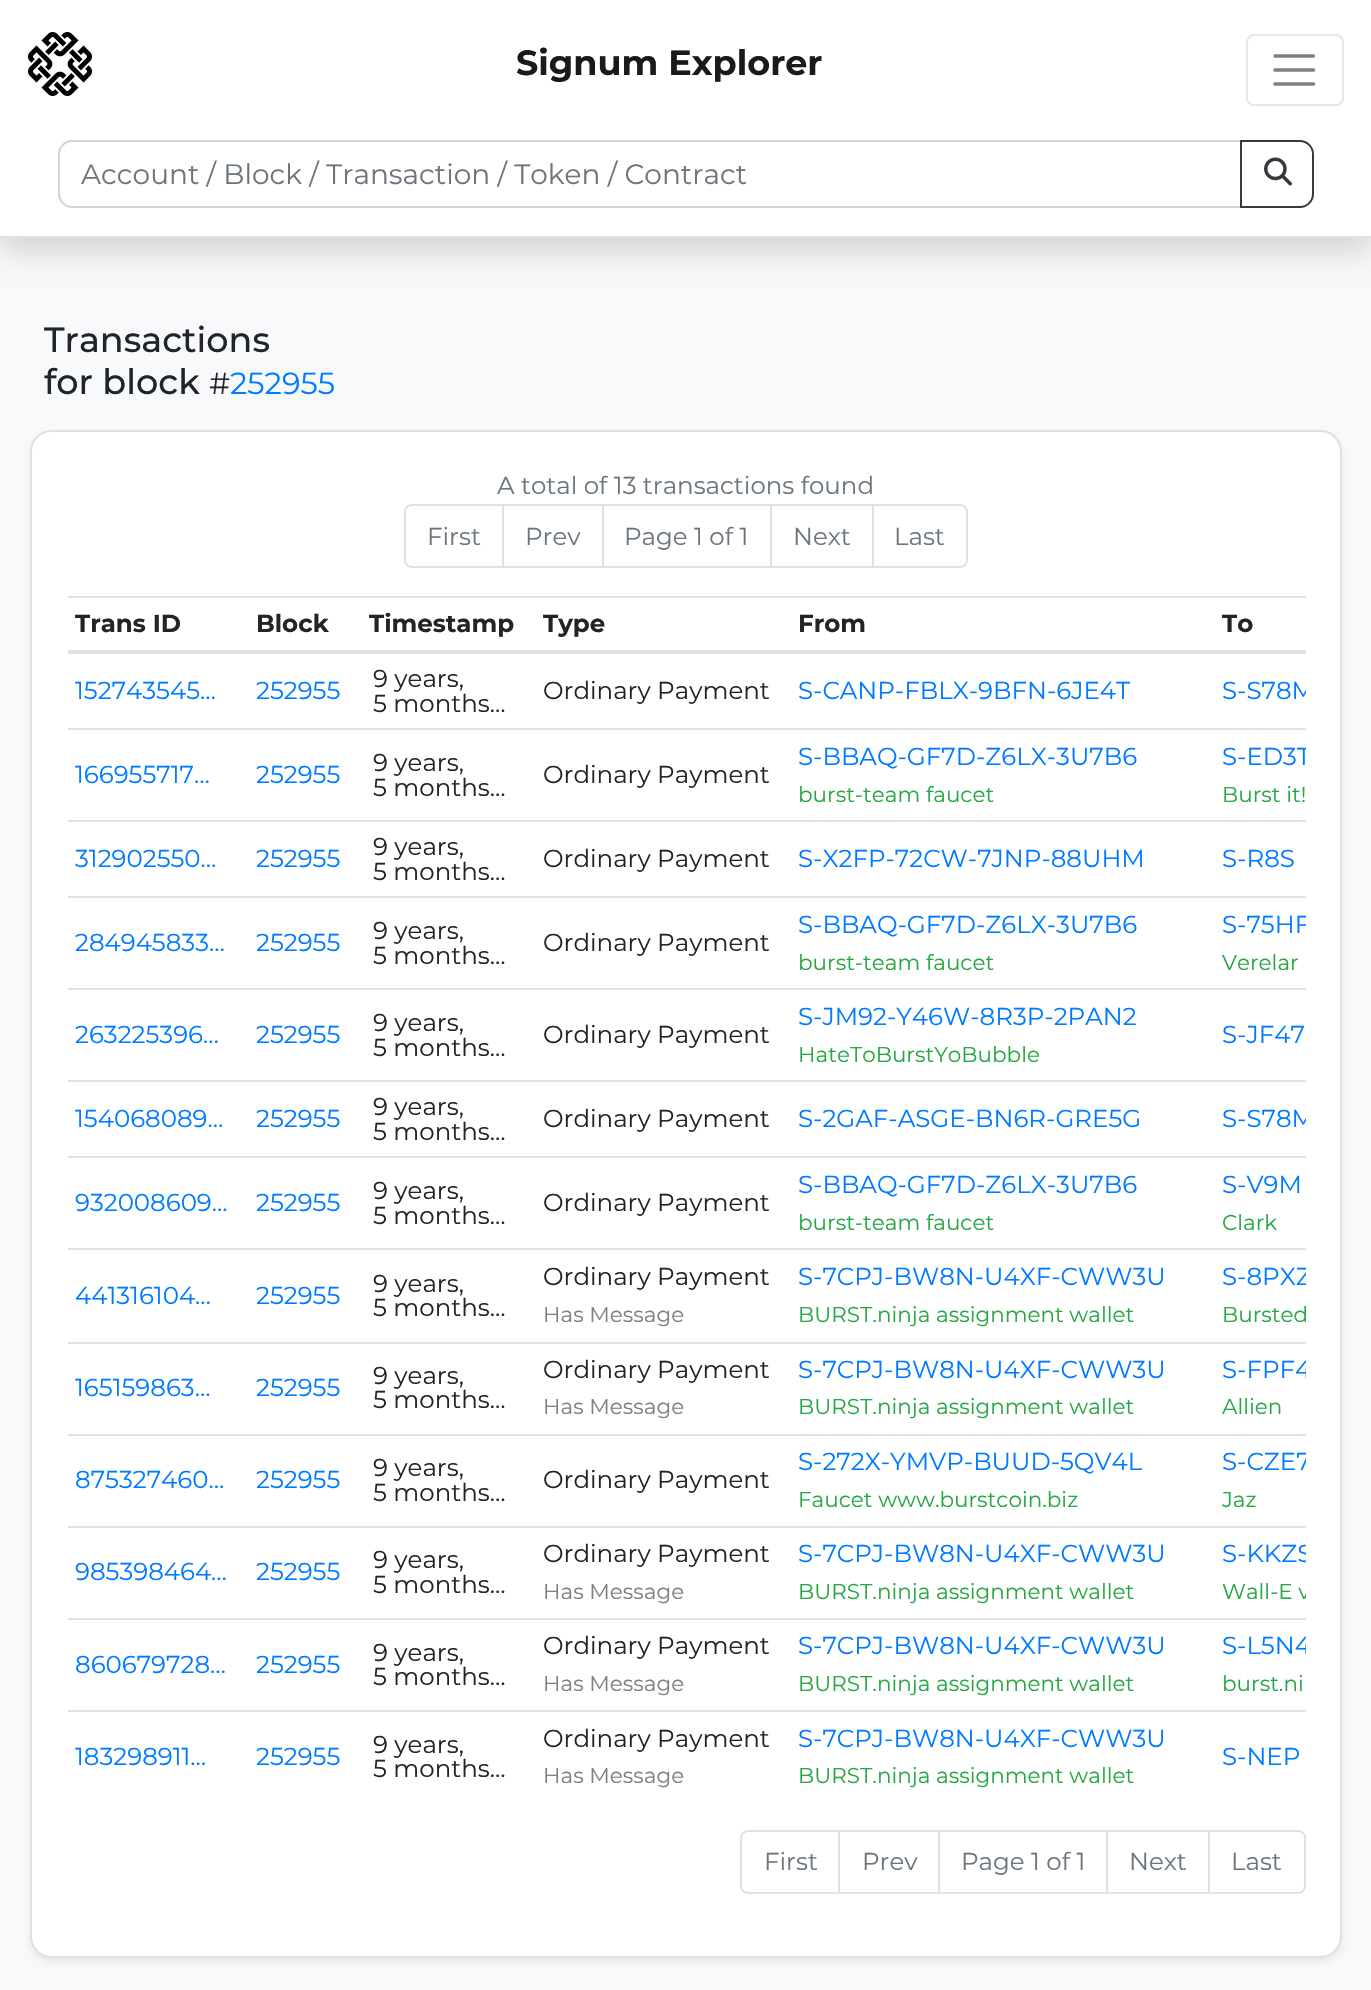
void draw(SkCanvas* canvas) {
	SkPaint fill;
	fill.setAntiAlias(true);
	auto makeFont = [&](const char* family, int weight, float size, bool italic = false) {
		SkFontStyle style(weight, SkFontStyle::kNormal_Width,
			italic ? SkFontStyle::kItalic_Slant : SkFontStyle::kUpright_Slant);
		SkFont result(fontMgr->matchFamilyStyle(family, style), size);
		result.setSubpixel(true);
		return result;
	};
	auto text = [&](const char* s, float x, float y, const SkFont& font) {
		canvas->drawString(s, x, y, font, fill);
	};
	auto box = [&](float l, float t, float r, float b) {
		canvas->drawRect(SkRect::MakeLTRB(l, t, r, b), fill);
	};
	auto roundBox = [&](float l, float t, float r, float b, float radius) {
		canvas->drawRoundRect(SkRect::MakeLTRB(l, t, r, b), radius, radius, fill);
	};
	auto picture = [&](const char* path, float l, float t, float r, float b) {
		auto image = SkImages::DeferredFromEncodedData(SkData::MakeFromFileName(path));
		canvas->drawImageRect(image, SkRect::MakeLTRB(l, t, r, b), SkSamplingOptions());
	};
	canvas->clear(0xFFF8F9FA);
	fill.setColor(0x26000000);
	fill.setMaskFilter(SkMaskFilter::MakeBlur(kNormal_SkBlurStyle, 14));
	canvas->drawRect(SkRect::MakeLTRB(0, 14, 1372, 252), fill);
	fill.setMaskFilter(nullptr);
	fill.setColor(0xFFFFFFFF);
	box(0, 0, 1371, 236);
	fill.setColor(0xFFDEE2E6);
	box(0, 236, 1371, 238);
	picture("image0.png", 28, 32, 92, 96);
	fill.setStyle(SkPaint::kStroke_Style);
	fill.setStrokeWidth(2);
	fill.setColor(0xFFE6E6E6);
	canvas->drawRoundRect(SkRect::MakeLTRB(1247, 35, 1343, 105), 7, 7, fill);
	fill.setStrokeWidth(3.5f);
	fill.setStrokeCap(SkPaint::kRound_Cap);
	fill.setColor(0xFF808080);
	canvas->drawPath(SkPathBuilder().moveTo(1275, 56).lineTo(1313.5f, 56).moveTo(1275, 70).lineTo(1313.5f, 70).moveTo(1275, 84).lineTo(1313.5f, 84).detach(), fill);
	fill.setStrokeWidth(2);
	fill.setStrokeCap(SkPaint::kButt_Cap);
	fill.setColor(0xFFCED4DA);
	canvas->drawPath(SkPathBuilder().moveTo(72, 141).lineTo(1241, 141).lineTo(1241, 207).lineTo(72, 207).cubicTo(65, 207, 59, 201, 59, 194).lineTo(59, 154).cubicTo(59, 147, 65, 141, 72, 141).close().detach(), fill);
	fill.setColor(0xFF343A40);
	canvas->drawPath(SkPathBuilder().moveTo(1241, 141).lineTo(1300, 141).cubicTo(1307, 141, 1313, 147, 1313, 154).lineTo(1313, 194).cubicTo(1313, 201, 1307, 207, 1300, 207).lineTo(1241, 207).close().detach(), fill);
	picture("image1.png", 1264, 157, 1292, 186);
	fill.setStyle(SkPaint::kFill_Style);
	fill.setColor(0x12000000);
	fill.setMaskFilter(SkMaskFilter::MakeBlur(kNormal_SkBlurStyle, 3.5f));
	canvas->drawRoundRect(SkRect::MakeLTRB(30, 434, 1342, 1962), 22, 22, fill);
	fill.setMaskFilter(nullptr);
	fill.setColor(0xFFFFFFFF);
	roundBox(30, 430, 1342, 1958, 22);
	fill.setStyle(SkPaint::kStroke_Style);
	fill.setColor(0x1F000000);
	canvas->drawRoundRect(SkRect::MakeLTRB(31, 431, 1341, 1957), 21, 21, fill);
	fill.setColor(0xFFDEE2E6);
	canvas->drawPath(SkPathBuilder().moveTo(412, 505).lineTo(503, 505).lineTo(503, 567).lineTo(412, 567).cubicTo(408, 567, 405, 564, 405, 560).lineTo(405, 512).cubicTo(405, 508, 408, 505, 412, 505).close().detach(), fill);
	canvas->drawRect(SkRect::MakeLTRB(503, 505, 603, 567), fill);
	canvas->drawRect(SkRect::MakeLTRB(603, 505, 771, 567), fill);
	canvas->drawRect(SkRect::MakeLTRB(771, 505, 873, 567), fill);
	fill.setStyle(SkPaint::kFill_Style);
	fill.setColor(0xFFFFFFFF);
	canvas->drawPath(SkPathBuilder().moveTo(873, 505).lineTo(960, 505).cubicTo(964, 505, 967, 508, 967, 512).lineTo(967, 560).cubicTo(967, 564, 964, 567, 960, 567).lineTo(873, 567).close().detach(), fill);
	fill.setStyle(SkPaint::kStroke_Style);
	fill.setColor(0xFFDEE2E6);
	canvas->drawPath(SkPathBuilder().moveTo(873, 505).lineTo(960, 505).cubicTo(964, 505, 967, 508, 967, 512).lineTo(967, 560).cubicTo(967, 564, 964, 567, 960, 567).lineTo(873, 567).close().detach(), fill);
	fill.setStyle(SkPaint::kFill_Style);
	box(68, 596, 1306, 598);
	box(68, 650, 1306, 654);
	box(68, 728, 1306, 730);
	box(68, 820, 1306, 822);
	box(68, 896, 1306, 898);
	box(68, 988, 1306, 990);
	box(68, 1080, 1306, 1082);
	box(68, 1156, 1306, 1158);
	box(68, 1248, 1306, 1250);
	box(68, 1342, 1306, 1344);
	box(68, 1434, 1306, 1436);
	box(68, 1526, 1306, 1528);
	box(68, 1618, 1306, 1620);
	box(68, 1710, 1306, 1712);
	fill.setStyle(SkPaint::kStroke_Style);
	canvas->drawPath(SkPathBuilder().moveTo(748, 1831).lineTo(839, 1831).lineTo(839, 1893).lineTo(748, 1893).cubicTo(744, 1893, 741, 1890, 741, 1886).lineTo(741, 1838).cubicTo(741, 1834, 744, 1831, 748, 1831).close().detach(), fill);
	canvas->drawRect(SkRect::MakeLTRB(839, 1831, 939, 1893), fill);
	canvas->drawRect(SkRect::MakeLTRB(939, 1831, 1107, 1893), fill);
	canvas->drawRect(SkRect::MakeLTRB(1107, 1831, 1209, 1893), fill);
	fill.setStyle(SkPaint::kFill_Style);
	fill.setColor(0xFFFFFFFF);
	canvas->drawPath(SkPathBuilder().moveTo(1209, 1831).lineTo(1298, 1831).cubicTo(1302, 1831, 1305, 1834, 1305, 1838).lineTo(1305, 1886).cubicTo(1305, 1890, 1302, 1893, 1298, 1893).lineTo(1209, 1893).close().detach(), fill);
	fill.setStyle(SkPaint::kStroke_Style);
	fill.setColor(0xFFDEE2E6);
	canvas->drawPath(SkPathBuilder().moveTo(1209, 1831).lineTo(1298, 1831).cubicTo(1302, 1831, 1305, 1834, 1305, 1838).lineTo(1305, 1886).cubicTo(1305, 1890, 1302, 1893, 1298, 1893).lineTo(1209, 1893).close().detach(), fill);
	auto font1 = makeFont("Montserrat", 700, 35);
	fill.setStyle(SkPaint::kFill_Style);
	fill.setColor(0xFF1A1A1A);
	text("Signum Explorer", 516, 75, font1);
	auto font2 = makeFont("Montserrat", 400, 28);
	fill.setColor(0xFF6C757D);
	text("Account / Block / Transaction / Token / Contract", 81, 184, font2);
	auto font3 = makeFont("Montserrat", 500, 35);
	fill.setColor(0xFF212529);
	text("Transactions", 44, 352, font3);
	text("for block", 44, 394, font3);
	auto font4 = makeFont("Montserrat", 400, 30.5f);
	text("#", 209, 394, font4);
	fill.setColor(0xFF007BFF);
	text("252955", 230, 394, font4);
	auto font5 = makeFont("Montserrat", 400, 24.5f);
	fill.setColor(0xFF6C757D);
	text("A total of 13 transactions found", 497, 494, font5);
	text("First", 427, 545, font5);
	text("Prev", 525, 545, font5);
	text("Page 1 of 1", 624, 545, font5);
	text("Next", 793, 545, font5);
	text("Last", 894, 545, font5);
	auto font6 = makeFont("Montserrat", 700, 24.5f);
	fill.setColor(0xFF212529);
	text("Trans ID", 75, 632, font6);
	text("Block", 256, 632, font6);
	text("Timestamp", 369, 632, font6);
	text("Type", 543, 632, font6);
	text("From", 798, 632, font6);
	text("To", 1222, 632, font6);
	fill.setColor(0xFF007BFF);
	text("152743545…", 75, 699, font5);
	text("252955", 256, 699, font5);
	fill.setColor(0xFF212529);
	text("9 years,", 373, 687, font5);
	text("5 months…", 373, 712, font5);
	text("Ordinary Payment", 543, 699, font5);
	fill.setColor(0xFF007BFF);
	text("S-CANP-FBLX-9BFN-6JE4T", 798, 699, font5);
	canvas->save();
	canvas->clipRect(SkRect::MakeLTRB(68, 596, 1306, 1830));
	text("S-S78M", 1222, 699, font5);
	canvas->restore();
	text("166955717…", 75, 783, font5);
	text("252955", 256, 783, font5);
	fill.setColor(0xFF212529);
	text("9 years,", 373, 771, font5);
	text("5 months…", 373, 796, font5);
	text("Ordinary Payment", 543, 783, font5);
	fill.setColor(0xFF007BFF);
	text("S-BBAQ-GF7D-Z6LX-3U7B6", 798, 765, font5);
	auto font7 = makeFont("Montserrat", 400, 21.5f);
	fill.setColor(0xFF28A745);
	text("burst-team faucet", 798, 802, font7);
	canvas->save();
	canvas->clipRect(SkRect::MakeLTRB(68, 596, 1306, 1830));
	fill.setColor(0xFF007BFF);
	text("S-ED3T", 1222, 765, font5);
	canvas->restore();
	fill.setColor(0xFF28A745);
	text("Burst it!", 1222, 802, font7);
	fill.setColor(0xFF007BFF);
	text("312902550…", 75, 867, font5);
	text("252955", 256, 867, font5);
	fill.setColor(0xFF212529);
	text("9 years,", 373, 855, font5);
	text("5 months…", 373, 880, font5);
	text("Ordinary Payment", 543, 867, font5);
	fill.setColor(0xFF007BFF);
	text("S-X2FP-72CW-7JNP-88UHM", 798, 867, font5);
	text("S-R8S", 1222, 867, font5);
	text("284945833…", 75, 951, font5);
	text("252955", 256, 951, font5);
	fill.setColor(0xFF212529);
	text("9 years,", 373, 939, font5);
	text("5 months…", 373, 964, font5);
	text("Ordinary Payment", 543, 951, font5);
	fill.setColor(0xFF007BFF);
	text("S-BBAQ-GF7D-Z6LX-3U7B6", 798, 933, font5);
	fill.setColor(0xFF28A745);
	text("burst-team faucet", 798, 970, font7);
	canvas->save();
	canvas->clipRect(SkRect::MakeLTRB(68, 596, 1306, 1830));
	fill.setColor(0xFF007BFF);
	text("S-75HF", 1222, 933, font5);
	canvas->restore();
	fill.setColor(0xFF28A745);
	text("Verelar", 1222, 970, font7);
	fill.setColor(0xFF007BFF);
	text("263225396…", 75, 1043, font5);
	text("252955", 256, 1043, font5);
	fill.setColor(0xFF212529);
	text("9 years,", 373, 1031, font5);
	text("5 months…", 373, 1056, font5);
	text("Ordinary Payment", 543, 1043, font5);
	fill.setColor(0xFF007BFF);
	text("S-JM92-Y46W-8R3P-2PAN2", 798, 1025, font5);
	fill.setColor(0xFF28A745);
	text("HateToBurstYoBubble", 798, 1062, font7);
	fill.setColor(0xFF007BFF);
	text("S-JF47", 1222, 1043, font5);
	text("154068089…", 75, 1127, font5);
	text("252955", 256, 1127, font5);
	fill.setColor(0xFF212529);
	text("9 years,", 373, 1115, font5);
	text("5 months…", 373, 1140, font5);
	text("Ordinary Payment", 543, 1127, font5);
	fill.setColor(0xFF007BFF);
	text("S-2GAF-ASGE-BN6R-GRE5G", 798, 1127, font5);
	canvas->save();
	canvas->clipRect(SkRect::MakeLTRB(68, 596, 1306, 1830));
	text("S-S78M", 1222, 1127, font5);
	canvas->restore();
	text("932008609…", 75, 1211, font5);
	text("252955", 256, 1211, font5);
	fill.setColor(0xFF212529);
	text("9 years,", 373, 1199, font5);
	text("5 months…", 373, 1224, font5);
	text("Ordinary Payment", 543, 1211, font5);
	fill.setColor(0xFF007BFF);
	text("S-BBAQ-GF7D-Z6LX-3U7B6", 798, 1193, font5);
	fill.setColor(0xFF28A745);
	text("burst-team faucet", 798, 1230, font7);
	fill.setColor(0xFF007BFF);
	text("S-V9M", 1222, 1193, font5);
	fill.setColor(0xFF28A745);
	text("Clark", 1222, 1230, font7);
	fill.setColor(0xFF007BFF);
	text("441316104…", 75, 1304, font5);
	text("252955", 256, 1304, font5);
	fill.setColor(0xFF212529);
	text("9 years,", 373, 1292, font5);
	text("5 months…", 373, 1316, font5);
	text("Ordinary Payment", 543, 1285, font5);
	fill.setColor(0xFF808080);
	text("Has Message", 543, 1322, font7);
	fill.setColor(0xFF007BFF);
	text("S-7CPJ-BW8N-U4XF-CWW3U", 798, 1285, font5);
	fill.setColor(0xFF28A745);
	text("BURST.ninja assignment wallet", 798, 1322, font7);
	canvas->save();
	canvas->clipRect(SkRect::MakeLTRB(68, 596, 1306, 1830));
	fill.setColor(0xFF007BFF);
	text("S-8PXZ", 1222, 1285, font5);
	canvas->restore();
	fill.setColor(0xFF28A745);
	text("Bursted", 1222, 1322, font7);
	fill.setColor(0xFF007BFF);
	text("165159863…", 75, 1396, font5);
	text("252955", 256, 1396, font5);
	fill.setColor(0xFF212529);
	text("9 years,", 373, 1384, font5);
	text("5 months…", 373, 1408, font5);
	text("Ordinary Payment", 543, 1378, font5);
	fill.setColor(0xFF808080);
	text("Has Message", 543, 1414, font7);
	fill.setColor(0xFF007BFF);
	text("S-7CPJ-BW8N-U4XF-CWW3U", 798, 1378, font5);
	fill.setColor(0xFF28A745);
	text("BURST.ninja assignment wallet", 798, 1414, font7);
	canvas->save();
	canvas->clipRect(SkRect::MakeLTRB(68, 596, 1306, 1830));
	fill.setColor(0xFF007BFF);
	text("S-FPF4", 1222, 1378, font5);
	canvas->restore();
	fill.setColor(0xFF28A745);
	text("Allien", 1222, 1414, font7);
	fill.setColor(0xFF007BFF);
	text("875327460…", 75, 1488, font5);
	text("252955", 256, 1488, font5);
	fill.setColor(0xFF212529);
	text("9 years,", 373, 1476, font5);
	text("5 months…", 373, 1501, font5);
	text("Ordinary Payment", 543, 1488, font5);
	fill.setColor(0xFF007BFF);
	text("S-272X-YMVP-BUUD-5QV4L", 798, 1470, font5);
	fill.setColor(0xFF28A745);
	text("Faucet www.burstcoin.biz", 798, 1507, font7);
	canvas->save();
	canvas->clipRect(SkRect::MakeLTRB(68, 596, 1306, 1830));
	fill.setColor(0xFF007BFF);
	text("S-CZE7", 1222, 1470, font5);
	canvas->restore();
	fill.setColor(0xFF28A745);
	text("Jaz", 1222, 1507, font7);
	fill.setColor(0xFF007BFF);
	text("985398464…", 75, 1580, font5);
	text("252955", 256, 1580, font5);
	fill.setColor(0xFF212529);
	text("9 years,", 373, 1568, font5);
	text("5 months…", 373, 1593, font5);
	text("Ordinary Payment", 543, 1562, font5);
	fill.setColor(0xFF808080);
	text("Has Message", 543, 1599, font7);
	fill.setColor(0xFF007BFF);
	text("S-7CPJ-BW8N-U4XF-CWW3U", 798, 1562, font5);
	fill.setColor(0xFF28A745);
	text("BURST.ninja assignment wallet", 798, 1599, font7);
	canvas->save();
	canvas->clipRect(SkRect::MakeLTRB(68, 596, 1306, 1830));
	fill.setColor(0xFF007BFF);
	text("S-KKZS", 1222, 1562, font5);
	fill.setColor(0xFF28A745);
	text("Wall-E v", 1222, 1599, font7);
	canvas->restore();
	fill.setColor(0xFF007BFF);
	text("860679728…", 75, 1673, font5);
	text("252955", 256, 1673, font5);
	fill.setColor(0xFF212529);
	text("9 years,", 373, 1661, font5);
	text("5 months…", 373, 1685, font5);
	text("Ordinary Payment", 543, 1654, font5);
	fill.setColor(0xFF808080);
	text("Has Message", 543, 1691, font7);
	fill.setColor(0xFF007BFF);
	text("S-7CPJ-BW8N-U4XF-CWW3U", 798, 1654, font5);
	fill.setColor(0xFF28A745);
	text("BURST.ninja assignment wallet", 798, 1691, font7);
	canvas->save();
	canvas->clipRect(SkRect::MakeLTRB(68, 596, 1306, 1830));
	fill.setColor(0xFF007BFF);
	text("S-L5N4", 1222, 1654, font5);
	canvas->restore();
	fill.setColor(0xFF28A745);
	text("burst.ni", 1222, 1691, font7);
	fill.setColor(0xFF007BFF);
	text("183298911…", 75, 1765, font5);
	text("252955", 256, 1765, font5);
	fill.setColor(0xFF212529);
	text("9 years,", 373, 1753, font5);
	text("5 months…", 373, 1777, font5);
	text("Ordinary Payment", 543, 1747, font5);
	fill.setColor(0xFF808080);
	text("Has Message", 543, 1783, font7);
	fill.setColor(0xFF007BFF);
	text("S-7CPJ-BW8N-U4XF-CWW3U", 798, 1747, font5);
	fill.setColor(0xFF28A745);
	text("BURST.ninja assignment wallet", 798, 1783, font7);
	fill.setColor(0xFF007BFF);
	text("S-NEP", 1222, 1765, font5);
	fill.setColor(0xFF6C757D);
	text("First", 764, 1870, font5);
	text("Prev", 862, 1870, font5);
	text("Page 1 of 1", 961, 1870, font5);
	text("Next", 1129, 1870, font5);
	text("Last", 1231, 1870, font5);
}
